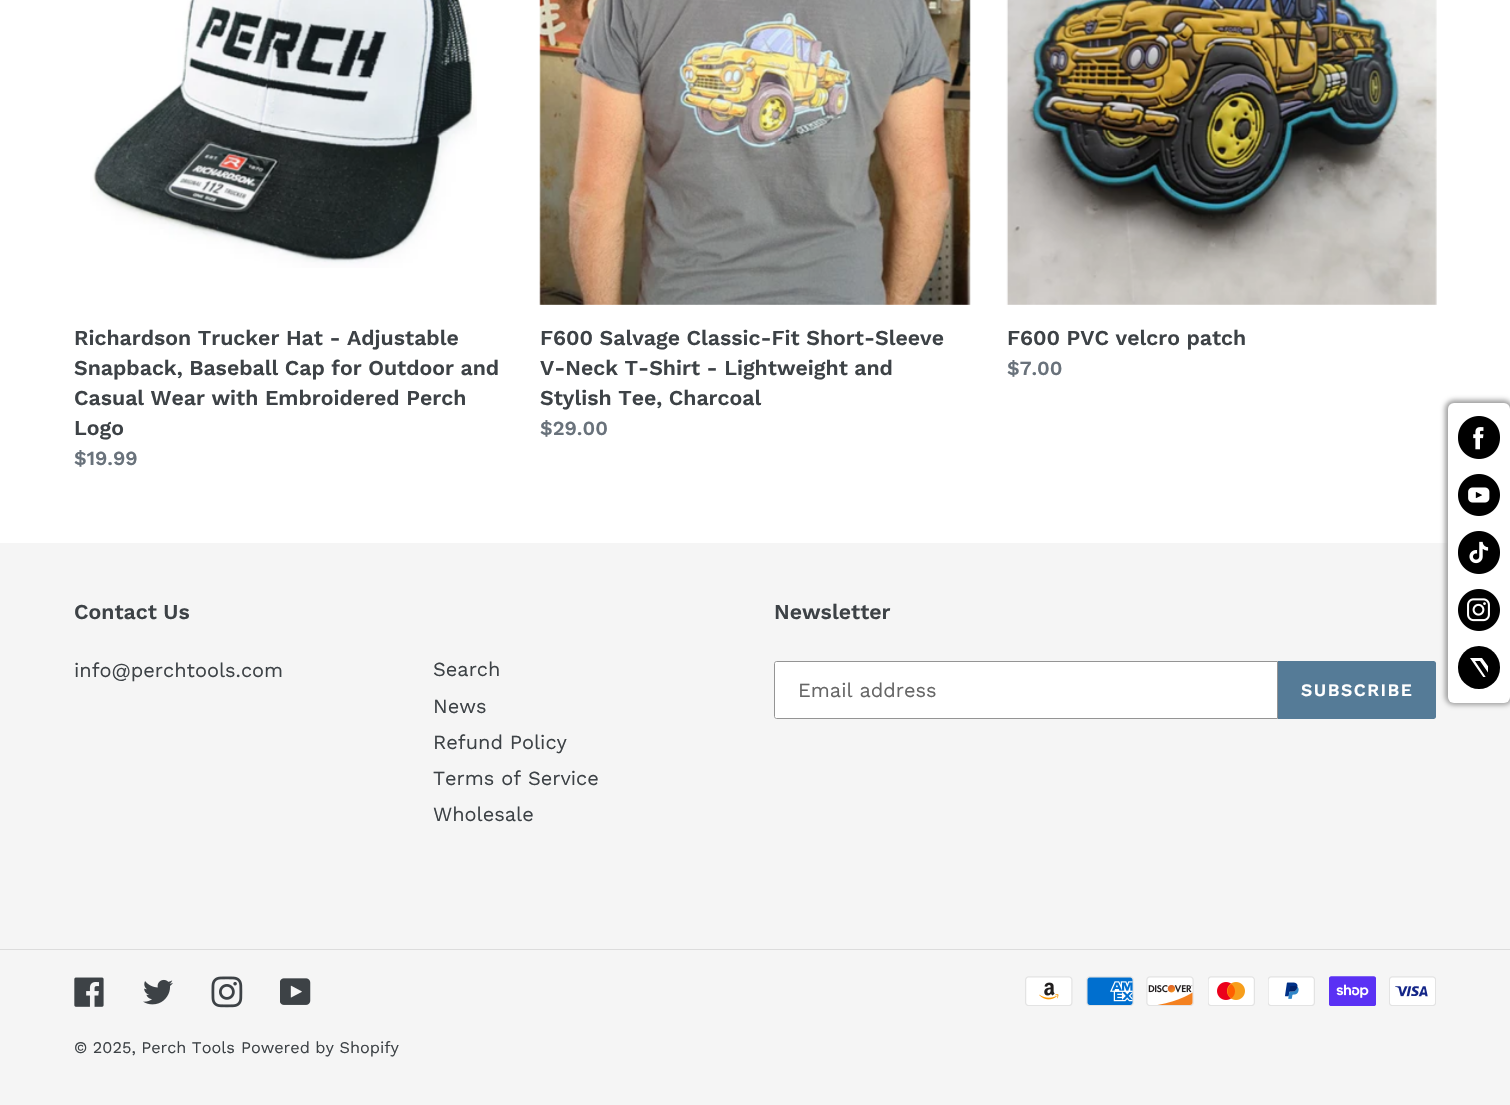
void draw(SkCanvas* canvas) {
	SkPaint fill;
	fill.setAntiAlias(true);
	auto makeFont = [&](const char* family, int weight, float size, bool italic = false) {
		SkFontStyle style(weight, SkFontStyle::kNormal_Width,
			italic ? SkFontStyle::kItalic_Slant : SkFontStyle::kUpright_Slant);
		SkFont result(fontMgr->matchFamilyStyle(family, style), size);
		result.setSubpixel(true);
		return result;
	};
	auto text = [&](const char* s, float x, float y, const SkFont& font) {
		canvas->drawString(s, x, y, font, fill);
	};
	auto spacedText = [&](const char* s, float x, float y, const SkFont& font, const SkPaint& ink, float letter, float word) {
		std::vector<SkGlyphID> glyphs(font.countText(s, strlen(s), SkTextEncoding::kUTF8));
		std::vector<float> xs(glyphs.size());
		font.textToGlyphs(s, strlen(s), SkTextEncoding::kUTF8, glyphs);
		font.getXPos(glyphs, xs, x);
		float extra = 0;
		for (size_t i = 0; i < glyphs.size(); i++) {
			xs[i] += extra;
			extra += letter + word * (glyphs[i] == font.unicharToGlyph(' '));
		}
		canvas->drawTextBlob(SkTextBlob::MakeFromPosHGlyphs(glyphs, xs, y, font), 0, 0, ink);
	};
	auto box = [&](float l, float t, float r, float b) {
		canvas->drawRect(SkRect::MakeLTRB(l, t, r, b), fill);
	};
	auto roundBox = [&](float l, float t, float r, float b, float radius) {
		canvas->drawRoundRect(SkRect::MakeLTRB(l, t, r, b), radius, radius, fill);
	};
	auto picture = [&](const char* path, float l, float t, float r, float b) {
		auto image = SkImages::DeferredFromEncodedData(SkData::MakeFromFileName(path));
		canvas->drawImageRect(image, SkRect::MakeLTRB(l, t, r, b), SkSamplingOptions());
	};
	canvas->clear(0xFFFFFFFF);
	picture("image0.png", 90, 0, 477, 268);
	picture("image1.png", 539, 0, 971, 305);
	picture("image2.png", 1006, 0, 1437, 305);
	fill.setColor(0xFFF5F5F5);
	box(0, 543, 1510, 1105);
	fill.setColor(0xFFFFFFFF);
	canvas->drawPath(SkPathBuilder().moveTo(776.5f, 661.5f).lineTo(1277.5f, 661.5f).lineTo(1277.5f, 718.5f).lineTo(776.5f, 718.5f).cubicTo(775.5f, 718.5f, 774.5f, 717.5f, 774.5f, 716.5f).lineTo(774.5f, 663.5f).cubicTo(774.5f, 662.5f, 775.5f, 661.5f, 776.5f, 661.5f).close().detach(), fill);
	fill.setStyle(SkPaint::kStroke_Style);
	fill.setStrokeWidth(1);
	fill.setColor(0xFF949494);
	canvas->drawPath(SkPathBuilder().moveTo(776.5f, 661.5f).lineTo(1277.5f, 661.5f).lineTo(1277.5f, 718.5f).lineTo(776.5f, 718.5f).cubicTo(775.5f, 718.5f, 774.5f, 717.5f, 774.5f, 716.5f).lineTo(774.5f, 663.5f).cubicTo(774.5f, 662.5f, 775.5f, 661.5f, 776.5f, 661.5f).close().detach(), fill);
	fill.setStyle(SkPaint::kFill_Style);
	fill.setColor(0xFF557B97);
	canvas->drawPath(SkPathBuilder().moveTo(1278, 661).lineTo(1433.5f, 661).cubicTo(1435, 661, 1436, 662, 1436, 663.5f).lineTo(1436, 716.5f).cubicTo(1436, 718, 1435, 719, 1433.5f, 719).lineTo(1278, 719).close().detach(), fill);
	fill.setColor(0xFFDCDCDC);
	box(0, 949, 1510, 950);
	picture("image3.png", 74, 977, 104, 1007);
	picture("image4.png", 143, 979, 173, 1005);
	picture("image5.png", 211, 976, 243, 1008);
	picture("image6.png", 280, 978, 311, 1005);
	picture("image7.png", 1025, 976, 1073, 1006);
	picture("image8.png", 1086, 976, 1134, 1006);
	picture("image9.png", 1146, 976, 1194, 1006);
	picture("image10.png", 1208, 976, 1255, 1006);
	picture("image11.png", 1268, 976, 1315, 1006);
	picture("image12.png", 1329, 976, 1376, 1006);
	picture("image13.png", 1389, 976, 1436, 1006);
	fill.setColor(0xFF9E9E9E);
	fill.setMaskFilter(SkMaskFilter::MakeBlur(kNormal_SkBlurStyle, 2.5f));
	canvas->drawRoundRect(SkRect::MakeLTRB(1445, 400, 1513, 705), 9, 9, fill);
	fill.setMaskFilter(nullptr);
	fill.setColor(0xFFFFFFFF);
	roundBox(1448, 403, 1510, 703, 6);
	picture("image14.png", 1458, 416, 1500, 459);
	picture("image15.png", 1458, 474, 1500, 516);
	picture("image16.png", 1458, 531, 1500, 574);
	picture("image17.png", 1458, 589, 1500, 631);
	fill.setColor(0xFF000000);
	roundBox(1458, 646, 1500, 689, 21);
	canvas->save();
	canvas->clipRect(SkRect::MakeLTRB(1469, 658, 1488, 677));
	fill.setColor(0xFFFFFFFF);
	canvas->drawPath(SkPathBuilder().moveTo(1494, 676).lineTo(1510, 658).lineTo(1506, 658).lineTo(1493, 673).lineTo(1482, 658).lineTo(1470, 658).lineTo(1486, 681).lineTo(1470, 700).lineTo(1473, 700).lineTo(1487, 684).lineTo(1499, 700).lineTo(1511, 700).close().moveTo(1489, 682).lineTo(1475, 661).lineTo(1480, 661).lineTo(1506, 698).lineTo(1500, 698).close().detach(), fill);
	canvas->restore();
	auto font1 = makeFont("Work Sans", 600, 21.25f);
	fill.setColor(0xFF3D4246);
	text("Richardson Trucker Hat - Adjustable", 74, 345, font1);
	text("Snapback, Baseball Cap for Outdoor and", 74, 375, font1);
	text("Casual Wear with Embroidered Perch", 74, 405, font1);
	text("Logo", 74, 435, font1);
	auto font2 = makeFont("Work Sans", 600, 20);
	fill.setColor(0xFF69727B);
	text("$19.99", 74, 465, font2);
	fill.setColor(0xFF3D4246);
	text("F600 Salvage Classic-Fit Short-Sleeve", 540, 345, font1);
	text("V-Neck T-Shirt - Lightweight and", 540, 375, font1);
	text("Stylish Tee, Charcoal", 540, 405, font1);
	fill.setColor(0xFF69727B);
	text("$29.00", 540, 435, font2);
	fill.setColor(0xFF3D4246);
	text("F600 PVC velcro patch", 1007, 345, font1);
	fill.setColor(0xFF69727B);
	text("$7.00", 1007, 375, font2);
	fill.setColor(0xFF3D4246);
	text("Contact Us", 74, 619, font1);
	auto font3 = makeFont("Work Sans", 400, 20);
	text("info@perchtools.com", 74, 677, font3);
	text("Newsletter", 774, 619, font1);
	fill.setColor(0xFF666666);
	text("Email address", 798, 697, font3);
	auto font4 = makeFont("Work Sans", 600, 17.5f);
	fill.setColor(0xFFFFFFFF);
	spacedText("SUBSCRIBE", 1301, 696, font4, fill, 1.5f, 0);
	fill.setColor(0xFF3D4246);
	text("Search", 433, 676, font3);
	text("News", 433, 713, font3);
	text("Refund Policy", 433, 749, font3);
	text("Terms of Service", 433, 785, font3);
	text("Wholesale", 433, 821, font3);
	auto font5 = makeFont("Work Sans", 400, 16.25f);
	text("© 2025, Perch Tools", 74, 1053, font5);
	text("Powered by Shopify", 241, 1053, font5);
}
